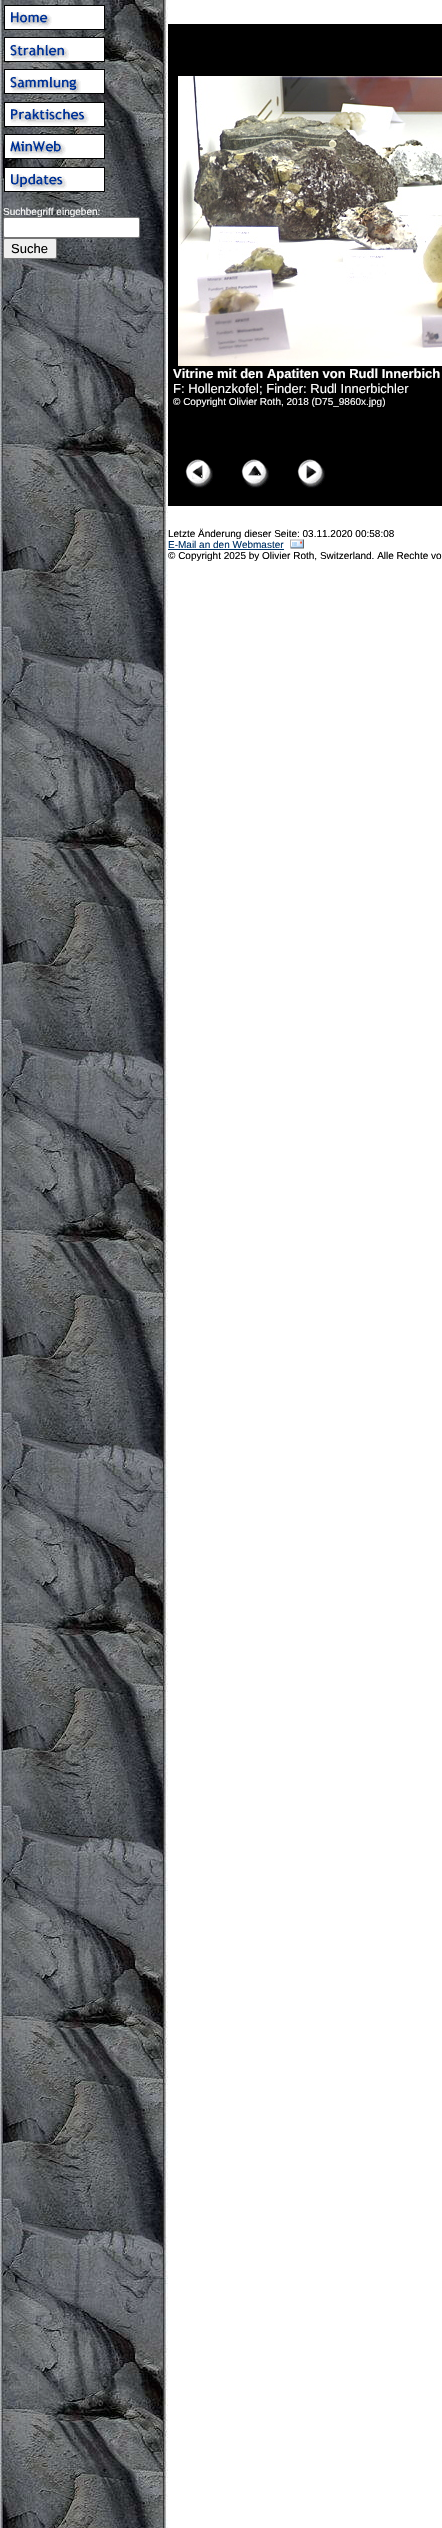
void draw(SkCanvas* canvas) {
	SkPaint fill;
	fill.setAntiAlias(true);
	auto makeFont = [&](const char* family, int weight, float size, bool italic = false) {
		SkFontStyle style(weight, SkFontStyle::kNormal_Width,
			italic ? SkFontStyle::kItalic_Slant : SkFontStyle::kUpright_Slant);
		SkFont result(fontMgr->matchFamilyStyle(family, style), size);
		result.setSubpixel(true);
		return result;
	};
	auto text = [&](const char* s, float x, float y, const SkFont& font) {
		canvas->drawString(s, x, y, font, fill);
	};
	auto box = [&](float l, float t, float r, float b) {
		canvas->drawRect(SkRect::MakeLTRB(l, t, r, b), fill);
	};
	auto picture = [&](const char* path, float l, float t, float r, float b) {
		auto image = SkImages::DeferredFromEncodedData(SkData::MakeFromFileName(path));
		canvas->drawImageRect(image, SkRect::MakeLTRB(l, t, r, b), SkSamplingOptions());
	};
	canvas->clear(0xFFFFFFFF);
	picture("image0.png", 0, 0, 168, 2528);
	picture("image1.png", 4, 5, 105, 192);
	fill.setColor(0xFFFFFFFF);
	canvas->drawRoundRect(SkRect::MakeLTRB(3.5f, 217.5f, 139.5f, 237.5f), 1.5f, 1.5f, fill);
	fill.setStyle(SkPaint::kStroke_Style);
	fill.setStrokeWidth(1);
	fill.setColor(0xFF767676);
	canvas->drawRoundRect(SkRect::MakeLTRB(3.5f, 217.5f, 139.5f, 237.5f), 1.5f, 1.5f, fill);
	fill.setStyle(SkPaint::kFill_Style);
	fill.setColor(0xFFEFEFEF);
	canvas->drawRoundRect(SkRect::MakeLTRB(3.5f, 238.5f, 56.5f, 258.5f), 1.5f, 1.5f, fill);
	fill.setStyle(SkPaint::kStroke_Style);
	fill.setColor(0xFF767676);
	canvas->drawRoundRect(SkRect::MakeLTRB(3.5f, 238.5f, 56.5f, 258.5f), 1.5f, 1.5f, fill);
	fill.setStyle(SkPaint::kFill_Style);
	fill.setColor(0xFF000000);
	box(168, 24, 442, 506);
	picture("image2.png", 178, 76, 442, 366);
	picture("image3.png", 185, 459, 213, 488);
	picture("image4.png", 241, 459, 269, 488);
	picture("image5.png", 297, 459, 325, 488);
	fill.setColor(0xFF003366);
	box(168, 549, 284, 550);
	auto font1 = makeFont("Liberation Sans", 400, 10);
	fill.setColor(0xFFFFFFFF);
	text("Suchbegriff eingeben:", 3, 215, font1);
	auto font2 = makeFont("Liberation Sans", 400, 13);
	fill.setColor(0xFF000000);
	text("Suche", 11, 253, font2);
	auto font3 = makeFont("Liberation Sans", 700, 13);
	fill.setColor(0xFFFFFFFF);
	text("Vitrine mit den Apatiten von Rudl Innerbich", 173, 378, font3);
	text("F: Hollenzkofel; Finder: Rudl Innerbichler", 173, 393, font2);
	text("© Copyright Olivier Roth, 2018 (D75_9860x.jpg)", 173, 405, font1);
	fill.setColor(0xFF000000);
	text("Letzte Änderung dieser Seite: 03.11.2020 00:58:08", 168, 537, font1);
	fill.setColor(0xFF003366);
	text("E-Mail an den Webmaster", 168, 548, font1);
	picture("image6.png", 290, 539, 304, 549);
	fill.setColor(0xFF000000);
	text("© Copyright 2025 by Olivier Roth, Switzerland. Alle Rechte vo", 168, 559, font1);
}
